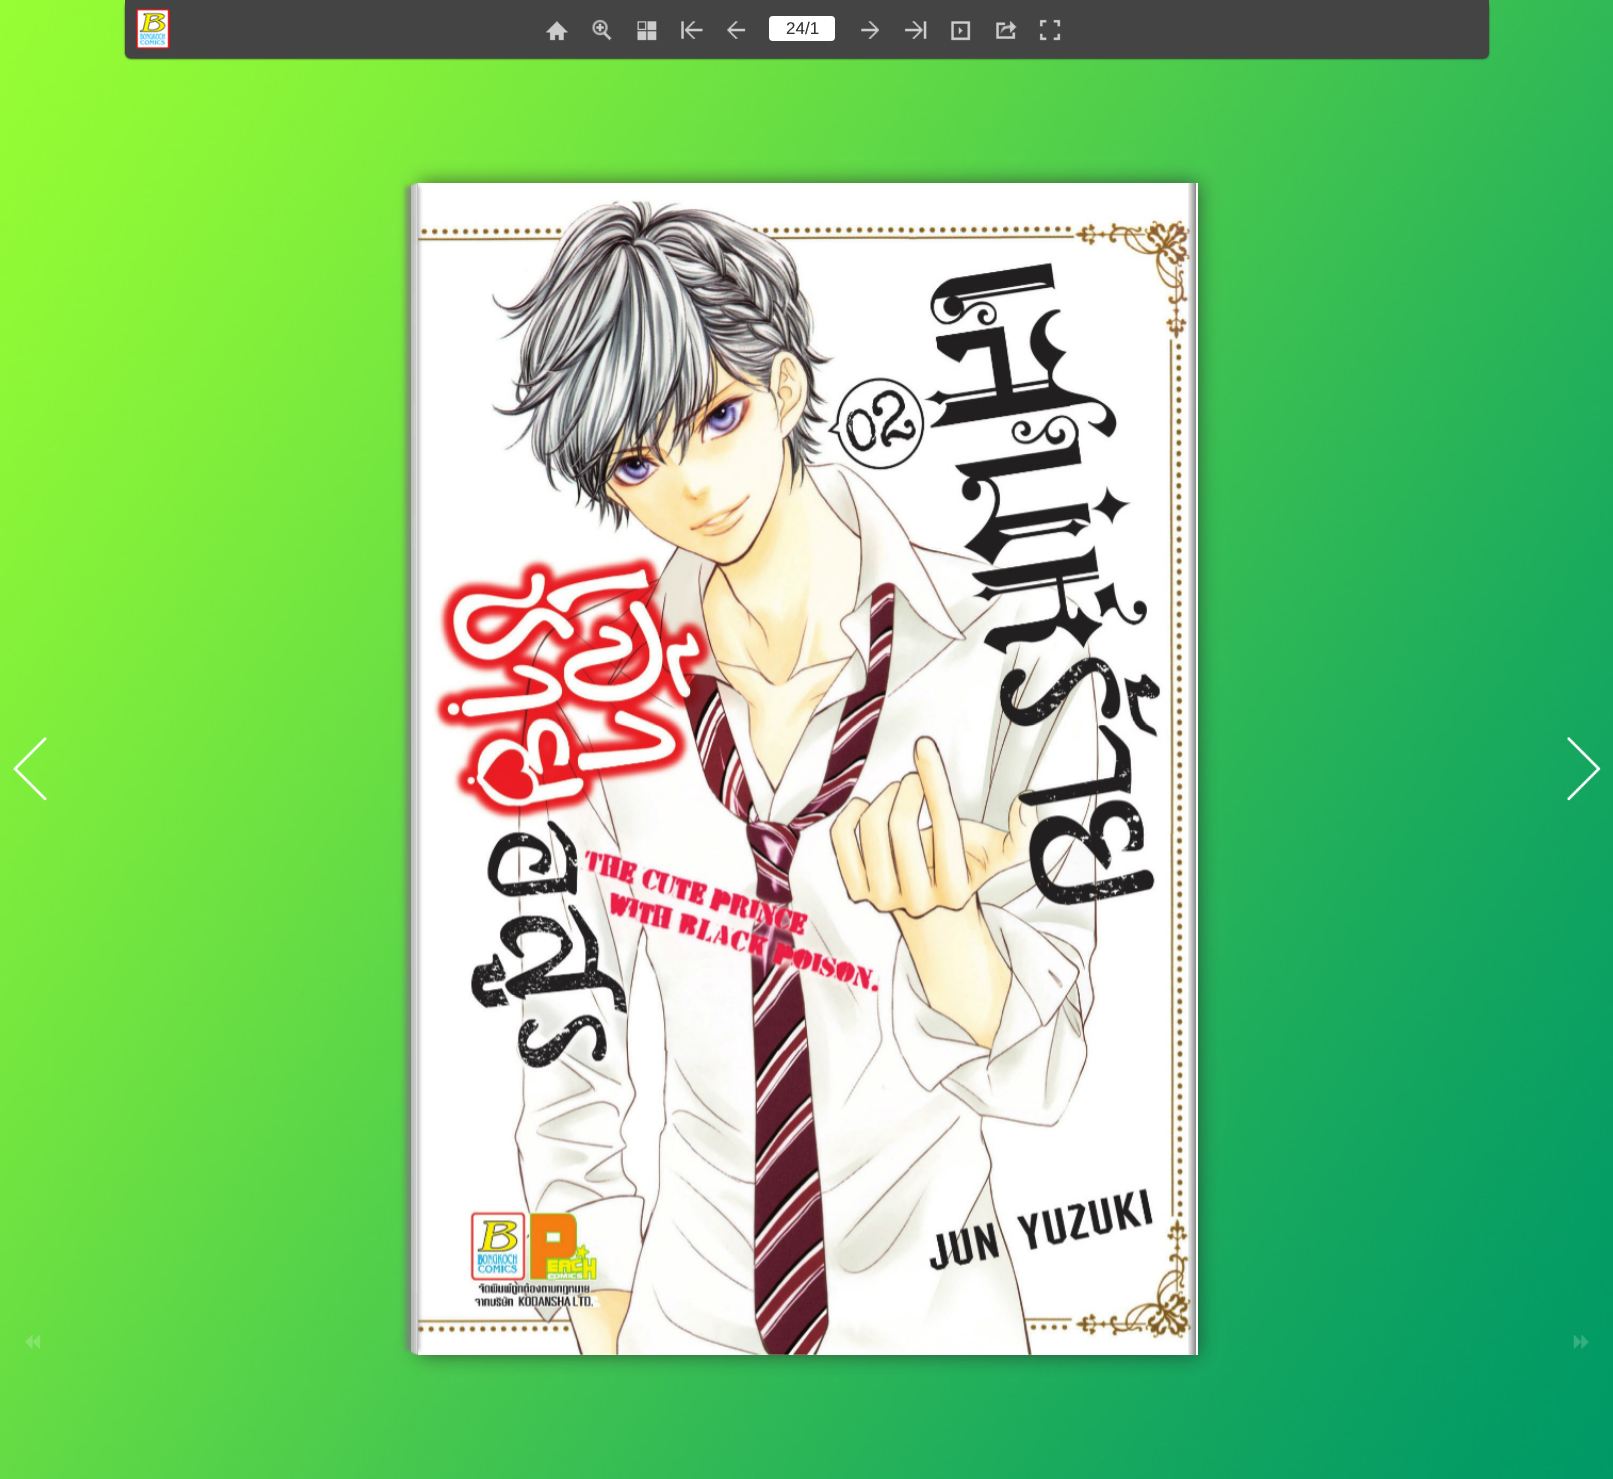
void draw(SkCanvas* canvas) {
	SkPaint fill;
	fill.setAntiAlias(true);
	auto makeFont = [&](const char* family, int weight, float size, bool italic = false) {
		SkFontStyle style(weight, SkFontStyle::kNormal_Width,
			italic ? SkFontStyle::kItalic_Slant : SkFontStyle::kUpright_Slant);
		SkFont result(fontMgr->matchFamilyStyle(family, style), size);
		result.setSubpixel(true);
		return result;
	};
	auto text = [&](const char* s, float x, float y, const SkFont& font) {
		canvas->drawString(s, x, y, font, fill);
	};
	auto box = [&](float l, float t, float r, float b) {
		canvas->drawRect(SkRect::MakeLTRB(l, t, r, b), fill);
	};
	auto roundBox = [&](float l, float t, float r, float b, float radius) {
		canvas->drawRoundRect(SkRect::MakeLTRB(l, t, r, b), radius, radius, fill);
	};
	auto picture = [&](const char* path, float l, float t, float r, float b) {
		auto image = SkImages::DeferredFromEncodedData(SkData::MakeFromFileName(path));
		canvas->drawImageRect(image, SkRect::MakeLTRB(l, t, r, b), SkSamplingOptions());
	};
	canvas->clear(0xFFFFFFFF);
	picture("image0.png", 0, 0, 1613, 1479);
	fill.setColor(0xFF303030);
	fill.setMaskFilter(SkMaskFilter::MakeBlur(kNormal_SkBlurStyle, 1));
	canvas->drawRoundRect(SkRect::MakeLTRB(125, 1, 1489, 59), 6, 6, fill);
	fill.setMaskFilter(nullptr);
	fill.setColor(0xFF444444);
	canvas->drawPath(SkPathBuilder().moveTo(125, 0).lineTo(1489, 0).lineTo(1489, 52).cubicTo(1489, 55.5f, 1486.5f, 58, 1483, 58).lineTo(131, 58).cubicTo(127.5f, 58, 125, 55.5f, 125, 52).close().detach(), fill);
	picture("image1.png", 136, 9, 170, 49);
	picture("image2.png", 546, 21, 568, 41);
	picture("image3.png", 592, 19, 612, 41);
	picture("image4.png", 637, 21, 657, 41);
	picture("image5.png", 681, 21, 703, 39);
	picture("image6.png", 727, 21, 746, 39);
	fill.setColor(0xFFFFFFFF);
	roundBox(769, 16, 835, 41, 4);
	picture("image7.png", 861, 21, 879, 39);
	picture("image8.png", 904, 21, 927, 39);
	picture("image9.png", 951, 21, 971, 41);
	picture("image10.png", 996, 21, 1017, 39);
	picture("image11.png", 1039, 19, 1061, 41);
	picture("image12.png", 13, 737, 47, 801);
	picture("image18.png", 418, 1354, 419, 1355);
	fill.setColor(0xB3282828);
	fill.setMaskFilter(SkMaskFilter::MakeBlur(kNormal_SkBlurStyle, 9.5f));
	canvas->drawRect(SkRect::MakeLTRB(419, 183, 1198, 1355), fill);
	fill.setMaskFilter(nullptr);
	picture("image16.png", 418, 183, 419, 199);
	fill.setColor(0xFFFFFFFF);
	box(419, 183, 1198, 1355);
	picture("image17.png", 418, 199, 1195, 1355);
	fill.setColor(0xB37D7D7D);
	fill.setMaskFilter(SkMaskFilter::MakeBlur(kNormal_SkBlurStyle, 2));
	canvas->drawRect(SkRect::MakeLTRB(405, 186, 419, 1351), fill);
	fill.setMaskFilter(nullptr);
	fill.setColor(0xFFCCCCCC);
	box(417, 186, 418, 1351);
	picture("image13.png", 411, 183, 418, 245);
	picture("image14.png", 411, 245, 417, 1293);
	picture("image15.png", 411, 1293, 418, 1355);
	{
		const SkColor colors[] = {0x80141414, 0x00141414};
		const float stops[] = {0, 1};
		const SkPoint ends[] = {{1196, 769}, {1187, 769}};
		fill.setShader(SkGradientShader::MakeLinear(ends, colors, stops, 2, SkTileMode::kClamp));
		fill.setAlpha(255);
	}
	box(1188, 183, 1196, 1355);
	picture("image19.png", 1567, 737, 1601, 801);
	picture("image20.png", 25, 1335, 41, 1349);
	picture("image21.png", 1573, 1335, 1589, 1349);
	auto font1 = makeFont("Liberation Sans", 400, 17);
	fill.setShader(nullptr);
	fill.setColor(0xFF333333);
	text("24/1", 786, 34, font1);
}
